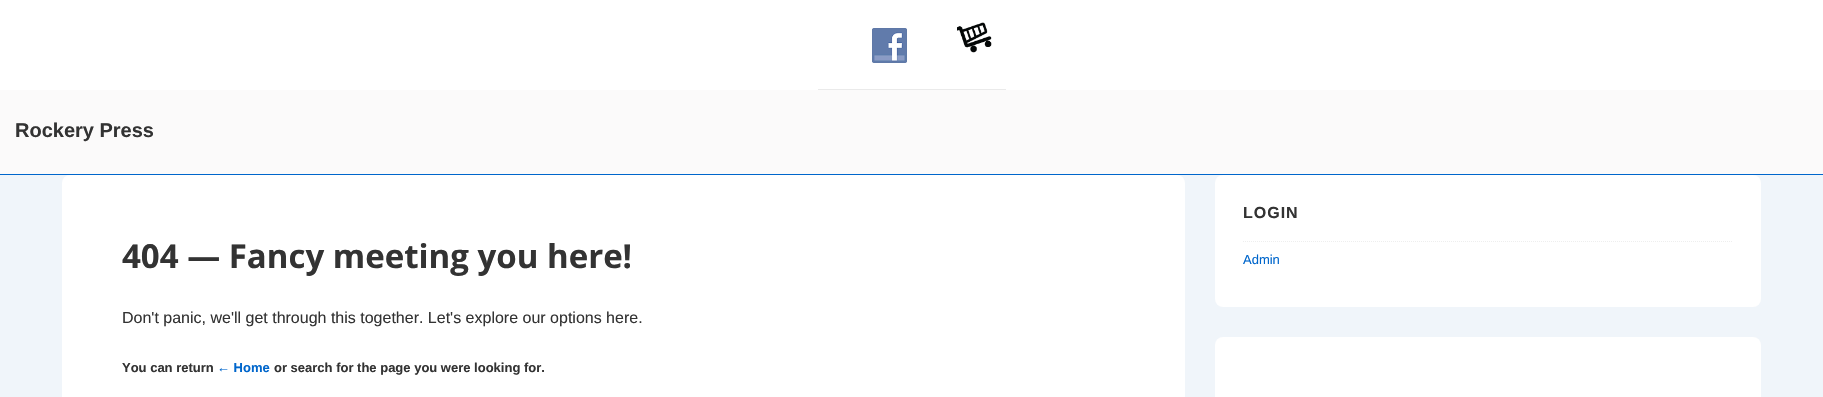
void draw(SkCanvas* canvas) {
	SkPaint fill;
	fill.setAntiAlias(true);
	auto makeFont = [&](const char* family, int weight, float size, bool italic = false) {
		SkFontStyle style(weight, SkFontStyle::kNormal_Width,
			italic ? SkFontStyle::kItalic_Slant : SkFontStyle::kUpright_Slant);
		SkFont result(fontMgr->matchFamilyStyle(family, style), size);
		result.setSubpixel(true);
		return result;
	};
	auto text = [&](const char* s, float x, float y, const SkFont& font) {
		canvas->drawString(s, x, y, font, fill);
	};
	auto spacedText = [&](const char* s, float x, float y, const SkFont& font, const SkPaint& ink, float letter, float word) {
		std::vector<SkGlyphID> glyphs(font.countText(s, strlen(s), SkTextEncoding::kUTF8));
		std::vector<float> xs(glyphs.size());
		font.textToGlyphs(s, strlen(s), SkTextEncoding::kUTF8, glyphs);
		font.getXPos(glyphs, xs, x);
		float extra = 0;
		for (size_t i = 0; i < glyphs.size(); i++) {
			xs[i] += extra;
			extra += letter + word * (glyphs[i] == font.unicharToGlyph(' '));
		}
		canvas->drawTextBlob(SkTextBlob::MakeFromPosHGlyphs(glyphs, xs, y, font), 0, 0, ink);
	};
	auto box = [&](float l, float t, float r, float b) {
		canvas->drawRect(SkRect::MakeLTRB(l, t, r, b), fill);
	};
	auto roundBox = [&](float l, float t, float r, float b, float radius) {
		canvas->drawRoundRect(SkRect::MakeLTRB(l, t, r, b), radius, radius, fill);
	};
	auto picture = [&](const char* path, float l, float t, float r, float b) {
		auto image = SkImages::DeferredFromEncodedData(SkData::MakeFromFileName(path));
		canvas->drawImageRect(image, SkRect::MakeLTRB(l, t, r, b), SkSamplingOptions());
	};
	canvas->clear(0xFFF0F5FA);
	fill.setColor(0xFFFFFFFF);
	box(0, 0, 1823, 90);
	fill.setColor(0xFFEAEAEA);
	box(818, 89, 1006, 90);
	picture("image0.png", 872, 28, 907, 63);
	picture("image1.png", 957, 22, 992, 53);
	fill.setColor(0xFFFBFAFA);
	box(0, 90, 1823, 174);
	fill.setColor(0xFF0066CC);
	box(0, 174, 1823, 175);
	fill.setColor(0xFFFFFFFF);
	roundBox(1215, 175, 1761, 307, 8);
	fill.setStyle(SkPaint::kStroke_Style);
	fill.setStrokeWidth(1);
	fill.setColor(0xFFEEEEEE);
	fill.setPathEffect(SkDashPathEffect::Make({{1, 1}}, 0));
	canvas->drawPath(SkPathBuilder().moveTo(1243, 241.5f).lineTo(1733, 241.5f).detach(), fill);
	fill.setPathEffect(nullptr);
	fill.setStyle(SkPaint::kFill_Style);
	fill.setColor(0xFFFFFFFF);
	roundBox(1215, 337, 1761, 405, 8);
	roundBox(62, 175, 1185, 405, 8);
	auto font1 = makeFont("Liberation Sans", 700, 20);
	fill.setColor(0xFF333333);
	text("Rockery Press", 15, 137, font1);
	auto font2 = makeFont("Liberation Sans", 700, 16);
	spacedText("LOGIN", 1243, 218, font2, fill, 1, 0);
	auto font3 = makeFont("Liberation Sans", 400, 13);
	fill.setColor(0xFF0066CC);
	text("Admin", 1243, 264, font3);
	auto font4 = makeFont("Open Sans", 700, 33);
	fill.setColor(0xFF333333);
	text("404 — Fancy meeting you here!", 122, 268, font4);
	auto font5 = makeFont("Liberation Sans", 400, 16);
	text("Don't panic, we'll get through this together. Let's explore our options here.", 122, 323, font5);
	auto font6 = makeFont("Liberation Sans", 700, 13);
	text("You can return", 122, 372, font6);
	fill.setColor(0xFF0066CC);
	text("← Home", 217, 372, font6);
	fill.setColor(0xFF333333);
	text("or search for the page you were looking for.", 274, 372, font6);
}
